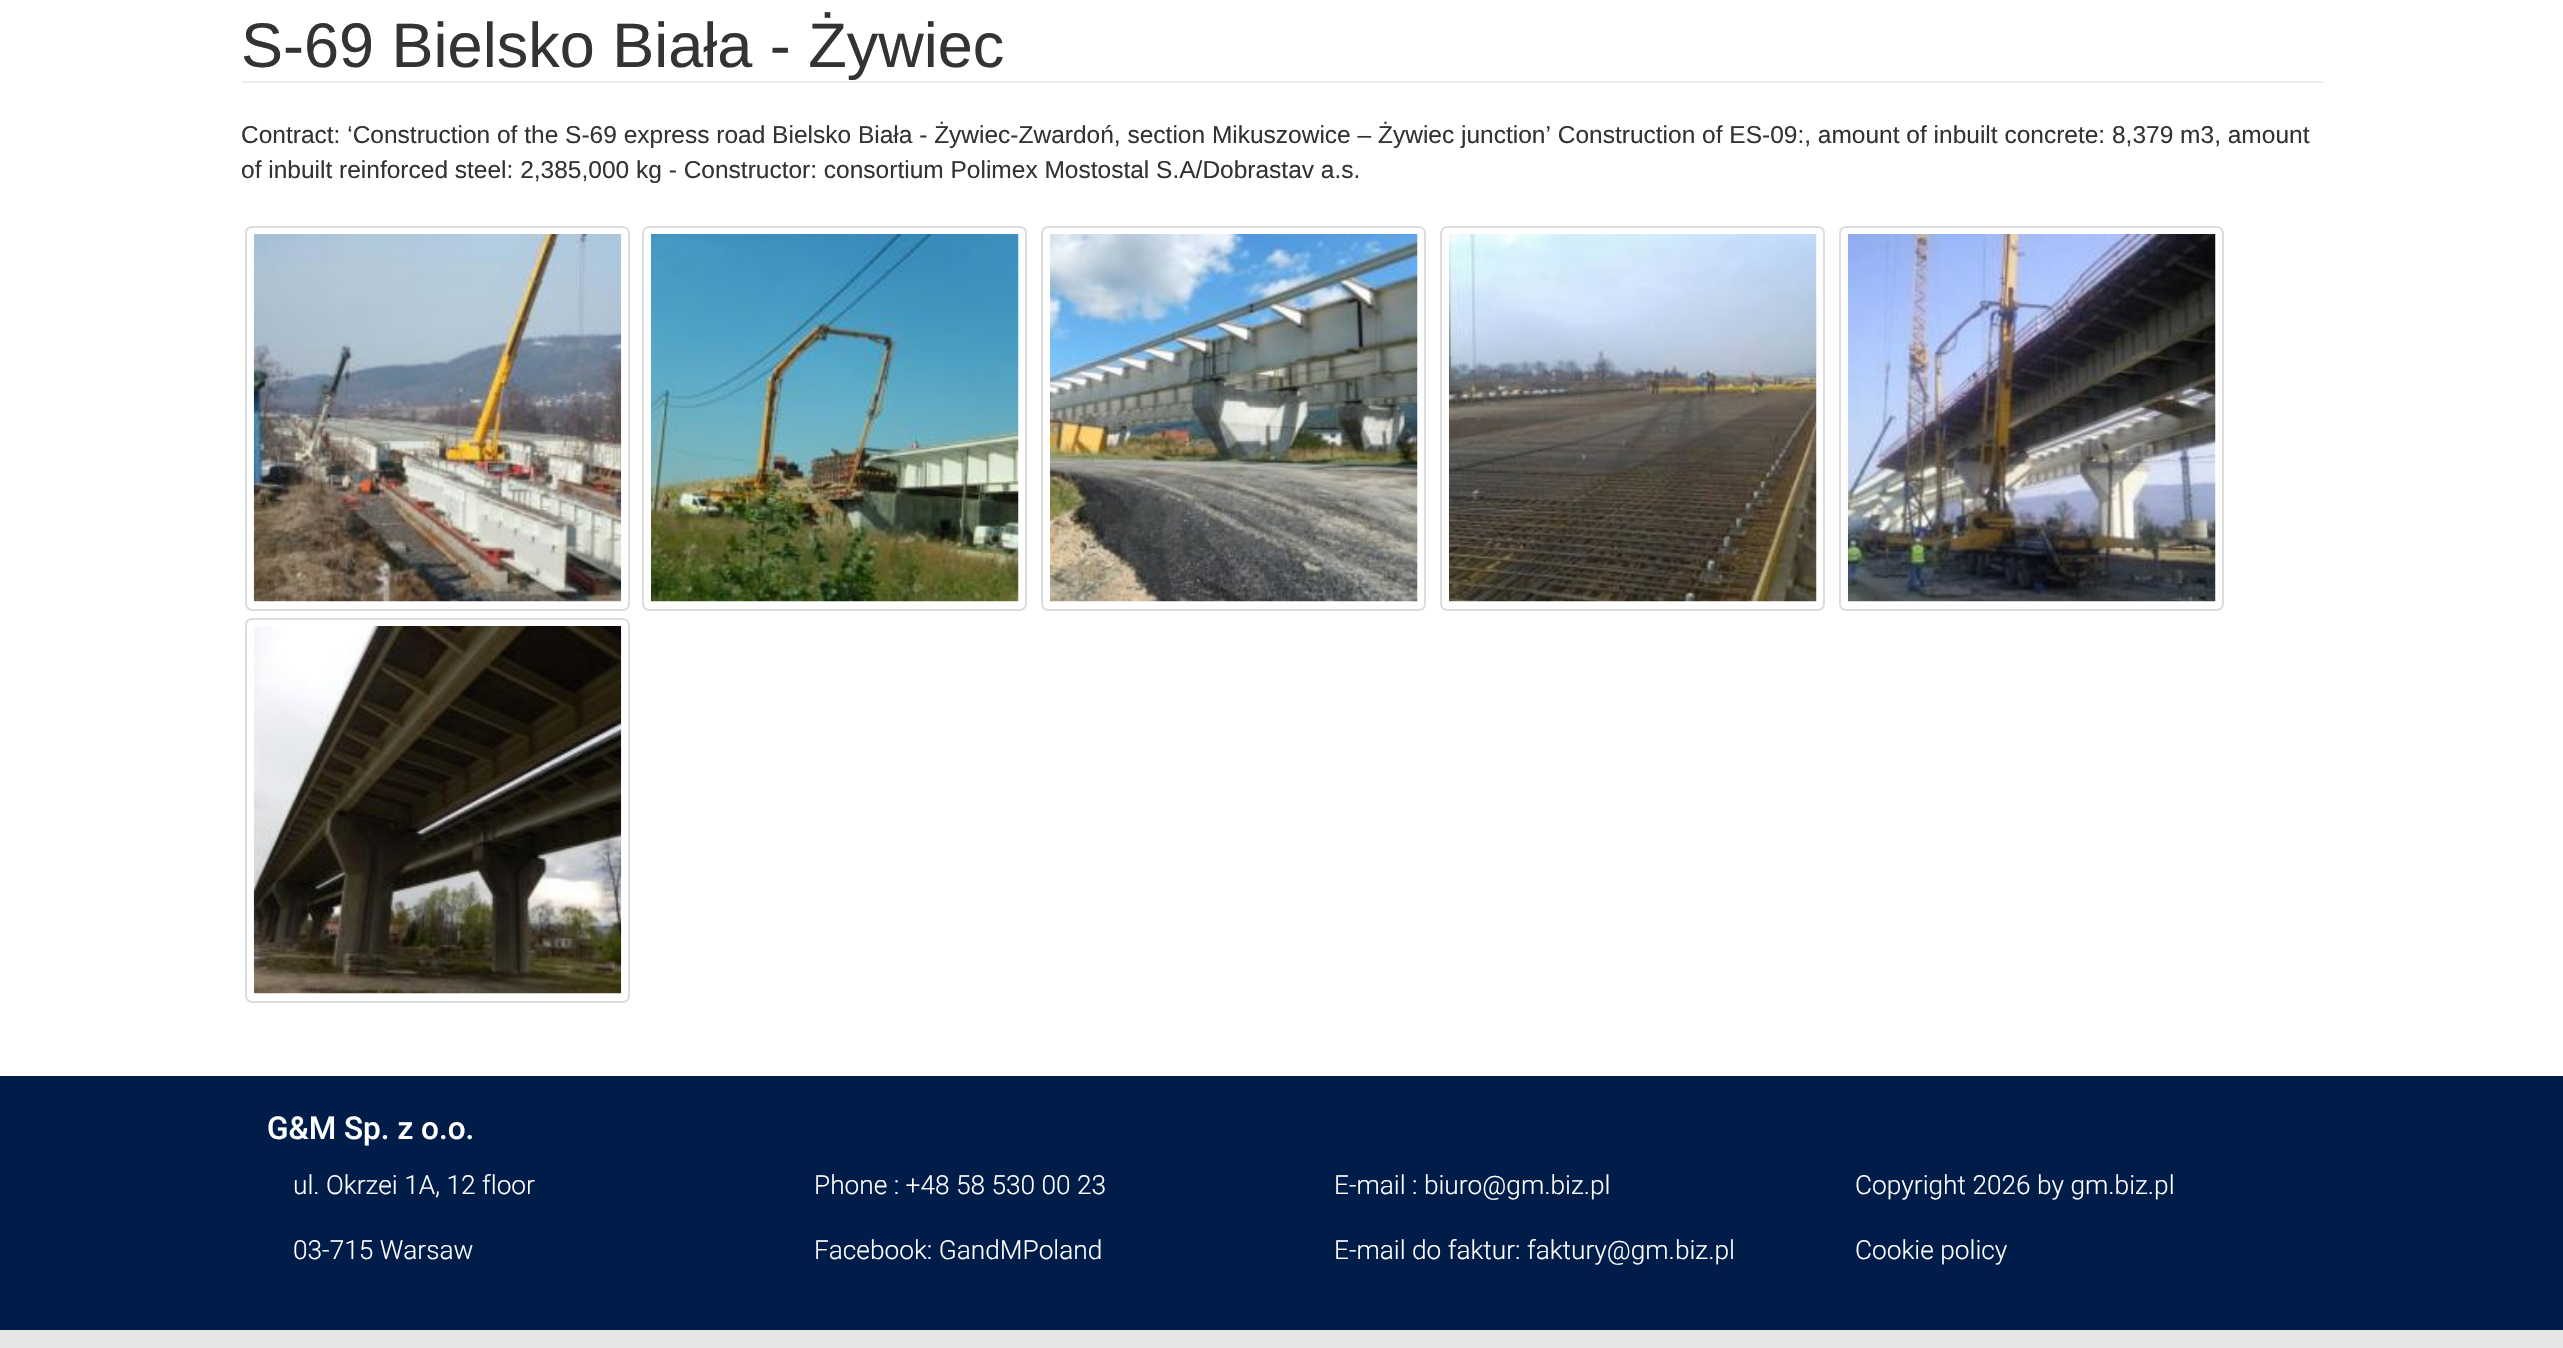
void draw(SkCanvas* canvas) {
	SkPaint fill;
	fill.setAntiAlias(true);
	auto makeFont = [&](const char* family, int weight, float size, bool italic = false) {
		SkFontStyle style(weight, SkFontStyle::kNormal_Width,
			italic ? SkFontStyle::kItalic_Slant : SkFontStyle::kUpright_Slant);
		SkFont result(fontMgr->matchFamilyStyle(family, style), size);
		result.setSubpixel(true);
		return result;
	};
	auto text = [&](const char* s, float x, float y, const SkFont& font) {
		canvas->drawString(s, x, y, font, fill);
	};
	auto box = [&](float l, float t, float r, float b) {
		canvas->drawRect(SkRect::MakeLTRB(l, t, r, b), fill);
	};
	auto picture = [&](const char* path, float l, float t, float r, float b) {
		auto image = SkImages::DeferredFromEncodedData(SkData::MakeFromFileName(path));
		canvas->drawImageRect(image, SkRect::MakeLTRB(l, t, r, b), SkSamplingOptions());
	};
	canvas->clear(0xFFFFFFFF);
	fill.setColor(0xFFEEEEEE);
	box(242, 81, 2324, 83);
	fill.setStyle(SkPaint::kStroke_Style);
	fill.setStrokeWidth(2);
	fill.setColor(0xFFDDDDDD);
	canvas->drawRoundRect(SkRect::MakeLTRB(246, 227, 629, 610), 6, 6, fill);
	picture("image0.png", 253, 234, 622, 602);
	canvas->drawRoundRect(SkRect::MakeLTRB(643, 227, 1026, 610), 6, 6, fill);
	picture("image1.png", 651, 234, 1019, 602);
	canvas->drawRoundRect(SkRect::MakeLTRB(1042, 227, 1425, 610), 6, 6, fill);
	picture("image2.png", 1050, 234, 1418, 602);
	canvas->drawRoundRect(SkRect::MakeLTRB(1441, 227, 1824, 610), 6, 6, fill);
	picture("image3.png", 1449, 234, 1817, 602);
	canvas->drawRoundRect(SkRect::MakeLTRB(1840, 227, 2223, 610), 6, 6, fill);
	picture("image4.png", 1848, 234, 2216, 602);
	canvas->drawRoundRect(SkRect::MakeLTRB(246, 619, 629, 1002), 6, 6, fill);
	picture("image5.png", 253, 626, 622, 994);
	fill.setStyle(SkPaint::kFill_Style);
	fill.setColor(0xFF001D49);
	box(0, 1076, 2563, 1330);
	fill.setColor(0xFFE6E6E6);
	box(0, 1330, 2563, 1348);
	auto font1 = makeFont("Liberation Sans", 400, 63);
	fill.setColor(0xFF333333);
	text("S-69 Bielsko Biała - Żywiec", 241, 67, font1);
	auto font2 = makeFont("Liberation Sans", 400, 24.5f);
	text("Contract: ‘Construction of the S-69 express road Bielsko Biała - Żywiec-Zwardoń, section Mikuszowice – Żywiec junction’ Construction of ES-09:, amount of inbuilt concrete: 8,379 m3, amount", 241, 143, font2);
	text("of inbuilt reinforced steel: 2,385,000 kg - Constructor: consortium Polimex Mostostal S.A/Dobrastav a.s.", 241, 178, font2);
	auto font3 = makeFont("Roboto", 500, 31.5f);
	fill.setColor(0xFFFFFFFF);
	text("G&M Sp. z o.o.", 267, 1139, font3);
	auto font4 = makeFont("Roboto", 300, 26.25f);
	text("ul. Okrzei 1A, 12 floor", 293, 1194, font4);
	text("03-715 Warsaw", 293, 1259, font4);
	text("Phone : +48 58 530 00 23", 814, 1194, font4);
	text("Facebook: GandMPoland", 814, 1259, font4);
	text("E-mail : biuro@gm.biz.pl", 1334, 1194, font4);
	text("E-mail do faktur: faktury@gm.biz.pl", 1334, 1259, font4);
	text("Copyright 2026 by gm.biz.pl", 1855, 1194, font4);
	text("Cookie policy", 1855, 1259, font4);
}
